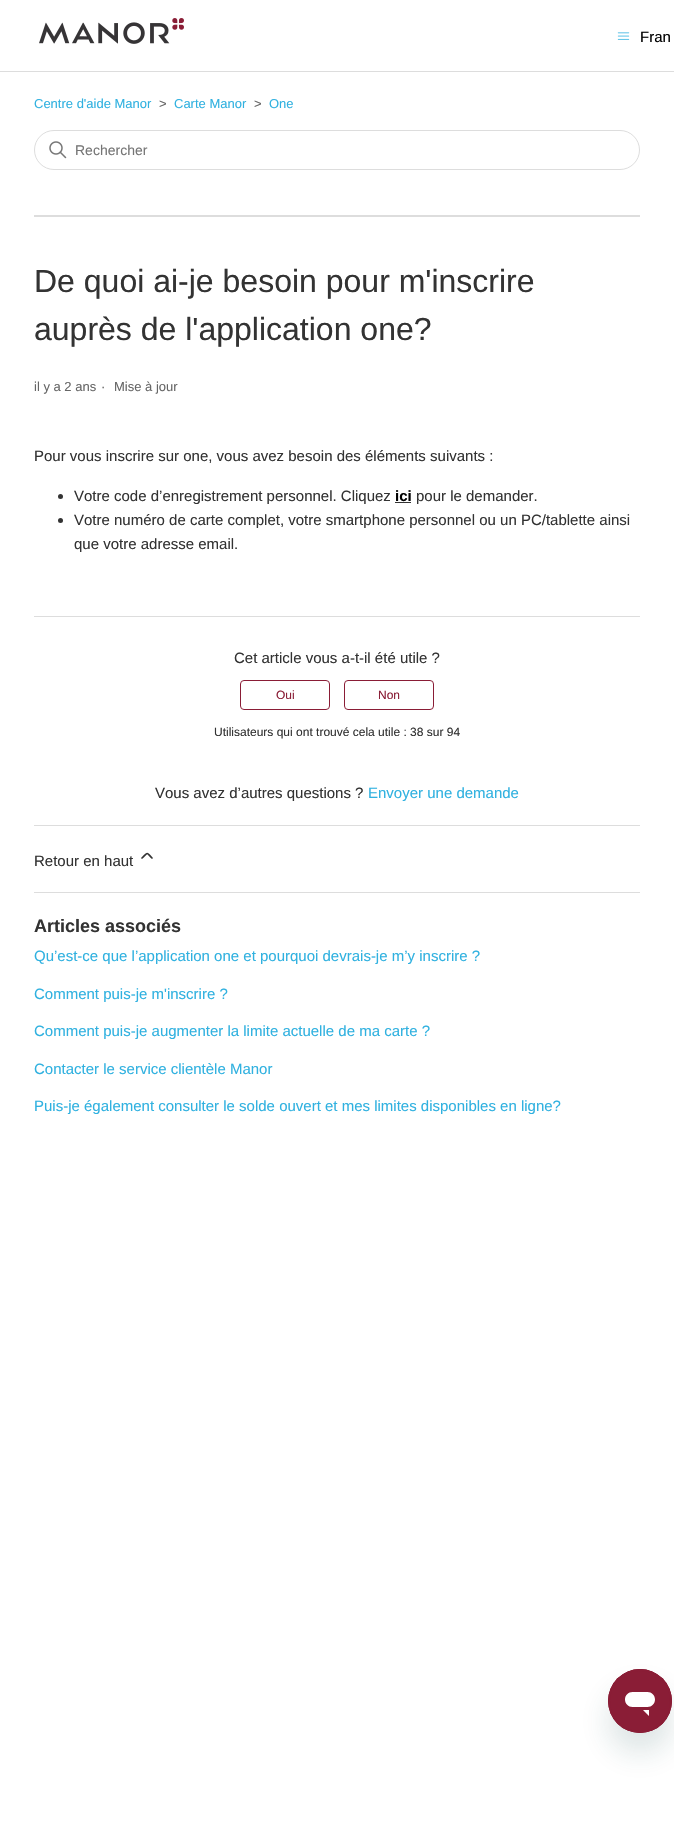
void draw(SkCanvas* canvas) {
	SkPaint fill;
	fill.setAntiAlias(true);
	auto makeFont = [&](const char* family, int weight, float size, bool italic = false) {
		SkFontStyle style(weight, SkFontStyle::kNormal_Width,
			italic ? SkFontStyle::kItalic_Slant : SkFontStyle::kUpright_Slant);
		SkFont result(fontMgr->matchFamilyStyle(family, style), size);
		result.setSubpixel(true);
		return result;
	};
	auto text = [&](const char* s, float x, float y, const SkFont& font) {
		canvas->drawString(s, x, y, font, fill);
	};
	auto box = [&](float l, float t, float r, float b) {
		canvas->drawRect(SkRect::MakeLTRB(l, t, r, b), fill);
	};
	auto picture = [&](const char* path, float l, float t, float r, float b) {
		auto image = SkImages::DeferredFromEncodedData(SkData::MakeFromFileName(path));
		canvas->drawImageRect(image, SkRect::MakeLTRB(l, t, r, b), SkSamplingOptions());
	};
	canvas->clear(0xFFFFFFFF);
	picture("image0.png", 39, 18, 184, 44);
	picture("image1.png", 617, 32, 630, 40);
	fill.setColor(0xFFDDDDDD);
	box(0, 71, 674, 72);
	fill.setStyle(SkPaint::kStroke_Style);
	fill.setStrokeWidth(1);
	canvas->drawRoundRect(SkRect::MakeLTRB(34.5f, 130.5f, 639.5f, 169.5f), 19.5f, 19.5f, fill);
	picture("image2.png", 49, 141, 67, 159);
	fill.setStyle(SkPaint::kFill_Style);
	box(34, 215, 640, 217);
	fill.setColor(0xFF333333);
	canvas->drawCircle(60.5f, 496.5f, 2.5f, fill);
	box(395, 502, 411, 503);
	canvas->drawCircle(60.5f, 520.5f, 2.5f, fill);
	fill.setColor(0xFFDDDDDD);
	box(34, 616, 640, 617);
	fill.setStyle(SkPaint::kStroke_Style);
	fill.setColor(0xFF8A1D36);
	canvas->drawRoundRect(SkRect::MakeLTRB(240.5f, 680.5f, 329.5f, 709.5f), 3.5f, 3.5f, fill);
	canvas->drawRoundRect(SkRect::MakeLTRB(344.5f, 680.5f, 433.5f, 709.5f), 3.5f, 3.5f, fill);
	fill.setStyle(SkPaint::kFill_Style);
	fill.setColor(0xFFDDDDDD);
	box(34, 825, 640, 826);
	fill.setStyle(SkPaint::kStroke_Style);
	fill.setStrokeWidth(1.7f);
	fill.setStrokeCap(SkPaint::kRound_Cap);
	fill.setColor(0xFF333333);
	canvas->drawPath(SkPathBuilder().moveTo(152, 858).cubicTo(146, 852, 148.5f, 852, 142, 858).detach(), fill);
	fill.setStyle(SkPaint::kFill_Style);
	fill.setColor(0xFFDDDDDD);
	box(34, 892, 640, 893);
	fill.setColor(0x2617494D);
	fill.setMaskFilter(SkMaskFilter::MakeBlur(kNormal_SkBlurStyle, 15));
	canvas->drawRoundRect(SkRect::MakeLTRB(608, 1689, 672, 1753), 32, 32, fill);
	fill.setMaskFilter(nullptr);
	picture("image3.png", 608, 1669, 672, 1733);
	auto font1 = makeFont("Liberation Sans", 400, 15);
	fill.setColor(0xFF000000);
	text("Fran", 640, 42, font1);
	auto font2 = makeFont("Liberation Sans", 400, 13);
	fill.setColor(0xFF30B1E0);
	text("Centre d'aide Manor", 34, 108, font2);
	fill.setColor(0xFF666666);
	text(">", 159, 108, font2);
	fill.setColor(0xFF30B1E0);
	text("Carte Manor", 174, 108, font2);
	fill.setColor(0xFF666666);
	text(">", 254, 108, font2);
	fill.setColor(0xFF30B1E0);
	text("One", 269, 108, font2);
	auto font3 = makeFont("Liberation Sans", 400, 14);
	fill.setColor(0xFF757575);
	text("Rechercher", 75, 155, font3);
	auto font4 = makeFont("Liberation Sans", 400, 32);
	fill.setColor(0xFF333333);
	text("De quoi ai-je besoin pour m'inscrire", 34, 292, font4);
	text("auprès de l'application one?", 34, 340, font4);
	fill.setColor(0xFF666666);
	text("il y a 2 ans", 34, 391, font2);
	text("·", 101, 391, font2);
	text("Mise à jour", 114, 391, font2);
	fill.setColor(0xFF333333);
	text("Pour vous inscrire sur one, vous avez besoin des éléments suivants :", 34, 461, font1);
	text("Votre code d’enregistrement personnel. Cliquez", 74, 501, font1);
	auto font5 = makeFont("Liberation Sans", 700, 15);
	fill.setColor(0xFF000000);
	text("ici", 395, 501, font5);
	fill.setColor(0xFF333333);
	text("pour le demander.", 416, 501, font1);
	text("Votre numéro de carte complet, votre smartphone personnel ou un PC/tablette ainsi", 74, 525, font1);
	text("que votre adresse email.", 74, 549, font1);
	text("Cet article vous a-t-il été utile ?", 234, 663, font1);
	auto font6 = makeFont("Liberation Sans", 400, 12);
	fill.setColor(0xFF8A1D36);
	text("Oui", 276, 699, font6);
	text("Non", 378, 699, font6);
	fill.setColor(0xFF333333);
	text("Utilisateurs qui ont trouvé cela utile : 38 sur 94", 214, 736, font6);
	text("Vous avez d’autres questions ?", 155, 798, font1);
	fill.setColor(0xFF30B1E0);
	text("Envoyer une demande", 368, 798, font1);
	fill.setColor(0xFF333333);
	text("Retour en haut", 34, 866, font1);
	auto font7 = makeFont("Liberation Sans", 700, 18);
	text("Articles associés", 34, 932, font7);
	fill.setColor(0xFF30B1E0);
	text("Qu’est-ce que l’application one et pourquoi devrais-je m’y inscrire ?", 34, 961, font1);
	text("Comment puis-je m'inscrire ?", 34, 999, font1);
	text("Comment puis-je augmenter la limite actuelle de ma carte ?", 34, 1036, font1);
	text("Contacter le service clientèle Manor", 34, 1074, font1);
	text("Puis-je également consulter le solde ouvert et mes limites disponibles en ligne?", 34, 1111, font1);
}
